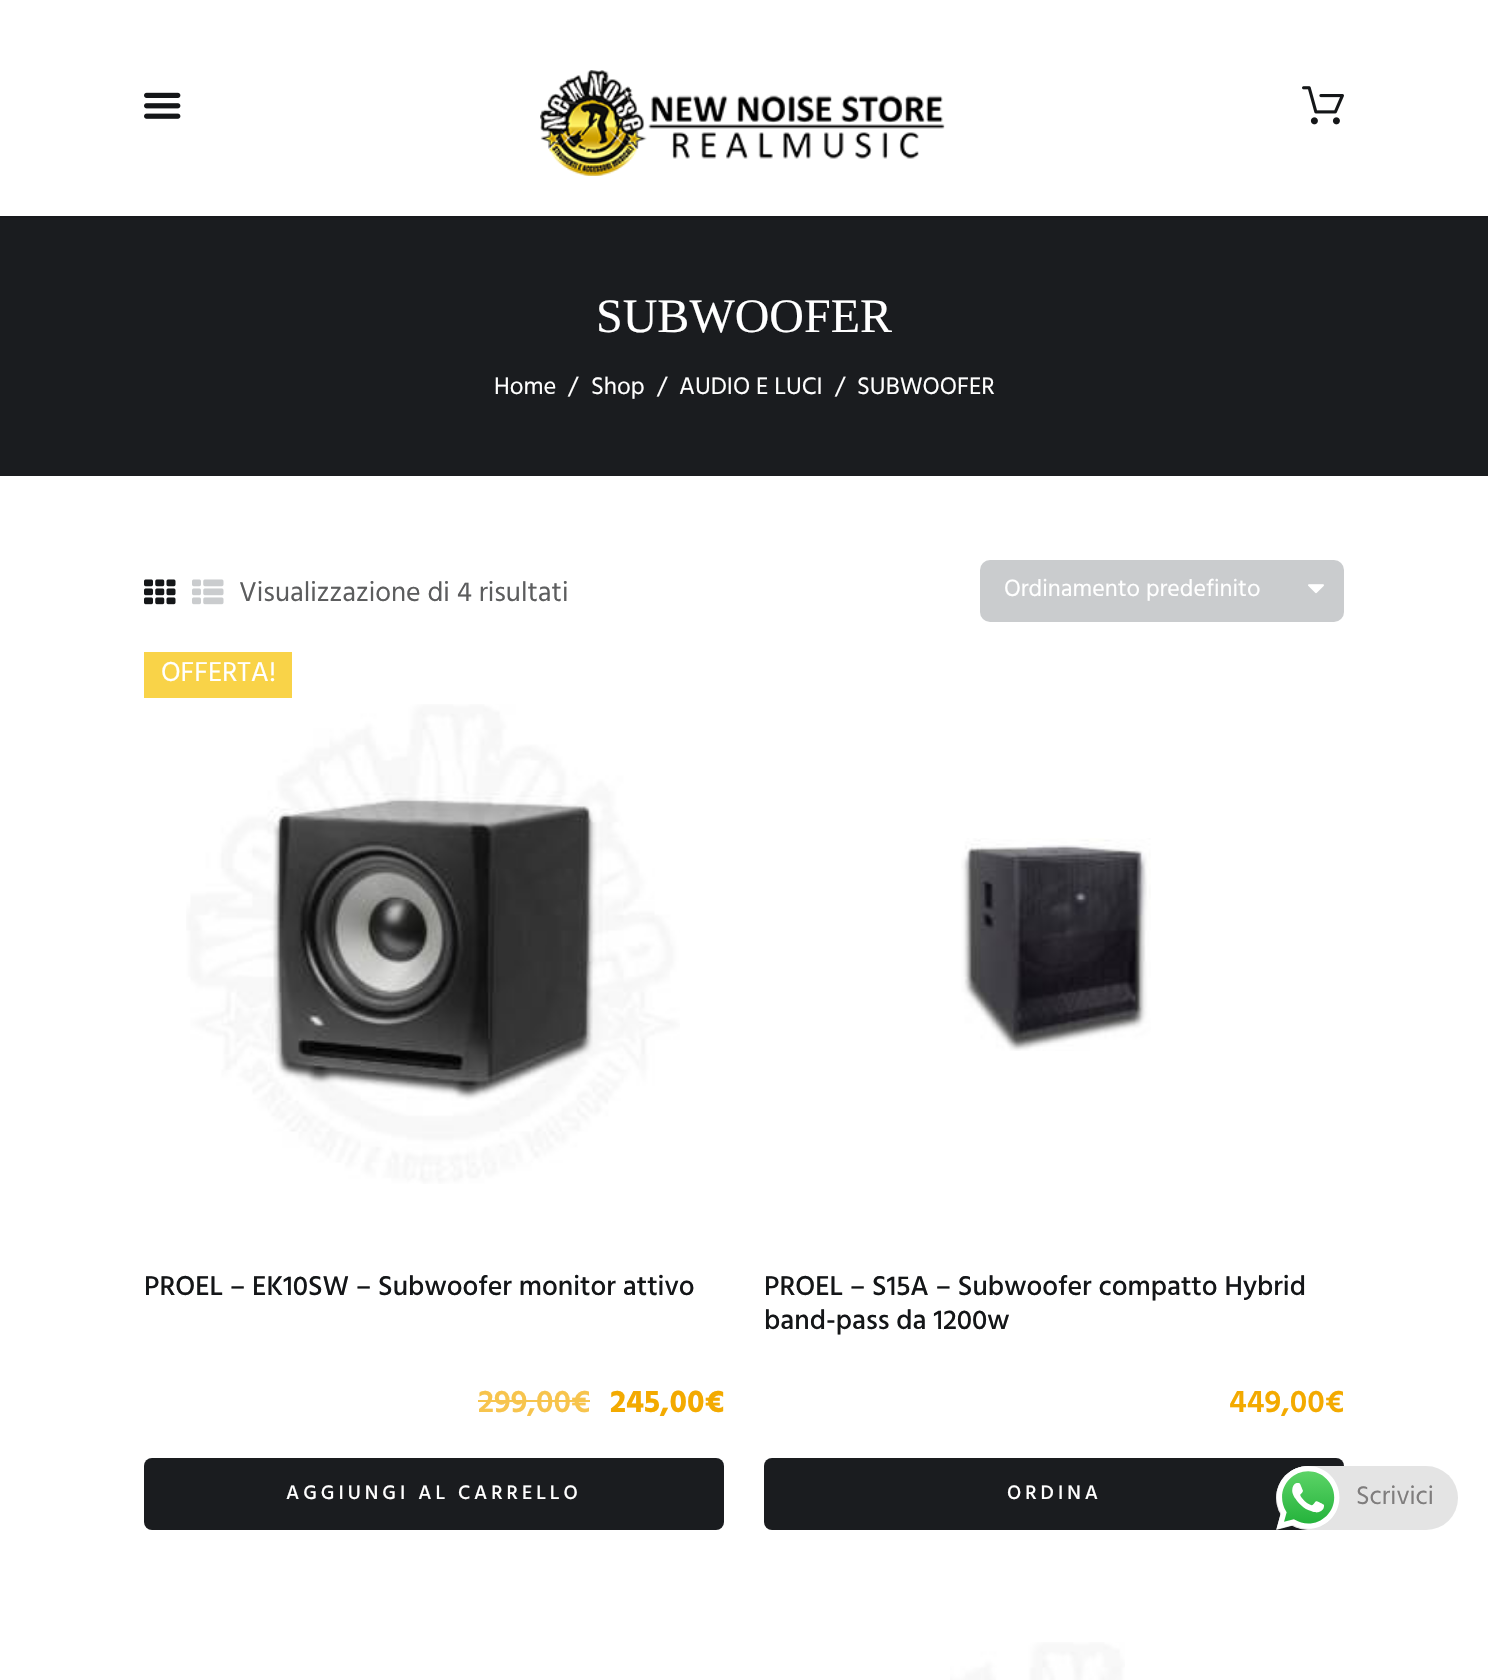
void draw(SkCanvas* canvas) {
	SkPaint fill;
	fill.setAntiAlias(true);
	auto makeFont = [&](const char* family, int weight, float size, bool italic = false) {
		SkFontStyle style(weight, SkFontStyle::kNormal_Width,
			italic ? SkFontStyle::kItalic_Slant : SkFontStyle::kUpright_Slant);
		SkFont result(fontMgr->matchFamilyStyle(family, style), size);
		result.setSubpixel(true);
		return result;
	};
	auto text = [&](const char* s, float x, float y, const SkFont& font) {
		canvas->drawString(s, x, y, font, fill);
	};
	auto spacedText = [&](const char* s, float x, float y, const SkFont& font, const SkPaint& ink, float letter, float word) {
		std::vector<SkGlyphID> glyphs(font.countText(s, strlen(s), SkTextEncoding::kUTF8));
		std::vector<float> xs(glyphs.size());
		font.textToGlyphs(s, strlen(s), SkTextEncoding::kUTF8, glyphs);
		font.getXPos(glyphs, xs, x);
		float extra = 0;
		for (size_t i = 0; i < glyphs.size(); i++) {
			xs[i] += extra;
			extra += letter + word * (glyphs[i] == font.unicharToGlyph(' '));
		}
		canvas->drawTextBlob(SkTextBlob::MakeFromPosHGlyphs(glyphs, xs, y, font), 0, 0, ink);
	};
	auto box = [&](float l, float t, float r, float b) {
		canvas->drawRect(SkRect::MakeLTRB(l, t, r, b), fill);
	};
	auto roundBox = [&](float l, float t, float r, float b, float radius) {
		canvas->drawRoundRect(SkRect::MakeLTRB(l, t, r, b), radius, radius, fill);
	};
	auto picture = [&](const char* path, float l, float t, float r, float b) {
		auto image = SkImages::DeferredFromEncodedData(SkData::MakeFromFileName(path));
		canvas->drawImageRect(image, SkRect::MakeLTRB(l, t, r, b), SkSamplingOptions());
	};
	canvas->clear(0xFFFFFFFF);
	picture("image0.png", 144, 92, 181, 119);
	picture("image1.png", 540, 70, 945, 176);
	picture("image2.png", 1302, 86, 1344, 125);
	fill.setColor(0xFF1A1C1F);
	box(0, 218, 1488, 476);
	fill.setColor(0xFF17191C);
	box(0, 216, 1488, 218);
	picture("image3.png", 144, 579, 176, 605);
	picture("image4.png", 192, 579, 224, 605);
	fill.setColor(0xFFCACCCE);
	roundBox(980, 560, 1344, 622, 10);
	picture("image5.png", 1308, 584, 1324, 594);
	fill.setColor(0xFFF9D348);
	box(144, 652, 292, 698);
	picture("image6.png", 186, 704, 680, 1184);
	fill.setColor(0xFFF7C44D);
	box(478, 1400, 590, 1402);
	fill.setColor(0xFF1A1C1F);
	roundBox(144, 1458, 724, 1530, 8);
	picture("image7.png", 961, 838, 1151, 1051);
	roundBox(764, 1458, 1344, 1530, 8);
	picture("image8.png", 950, 1642, 1125, 1680);
	fill.setColor(0xFFE4E4E4);
	roundBox(1276, 1466, 1458, 1530, 32);
	picture("image9.png", 1276, 1466, 1340, 1530);
	auto font1 = makeFont("Liberation Serif", 400, 48);
	fill.setColor(0xFFFFFFFF);
	text("SUBWOOFER", 596, 332, font1);
	auto font2 = makeFont("Hind", 400, 24.5f);
	text("Home", 494, 394, font2);
	text("/", 568, 394, font2);
	text("Shop", 591, 394, font2);
	text("/", 657, 394, font2);
	text("AUDIO E LUCI", 679, 394, font2);
	text("/", 835, 394, font2);
	text("SUBWOOFER", 857, 394, font2);
	auto font3 = makeFont("Hind", 400, 28);
	fill.setColor(0xFF5C5D5E);
	text("Visualizzazione di 4 risultati", 239, 601, font3);
	auto font4 = makeFont("Hind", 400, 24);
	fill.setColor(0xFFFFFFFF);
	text("Ordinamento predefinito", 1004, 596, font4);
	text("OFFERTA!", 161, 681, font3);
	auto font5 = makeFont("Hind", 500, 28);
	fill.setColor(0xFF141618);
	text("PROEL – EK10SW – Subwoofer monitor attivo", 144, 1295, font5);
	auto font6 = makeFont("Hind", 600, 32);
	fill.setColor(0xFFF7C44D);
	text("299,00€", 478, 1412, font6);
	auto font7 = makeFont("Hind", 700, 32);
	fill.setColor(0xFFF3AA00);
	text("245,00€", 610, 1412, font7);
	auto font8 = makeFont("Hind", 500, 20);
	fill.setColor(0xFFFFFFFF);
	spacedText("AGGIUNGI AL CARRELLO", 286, 1499, font8, fill, 4, 0);
	fill.setColor(0xFF141618);
	text("PROEL – S15A – Subwoofer compatto Hybrid", 764, 1295, font5);
	text("band-pass da 1200w", 764, 1329, font5);
	fill.setColor(0xFFF3AA00);
	text("449,00€", 1229, 1412, font6);
	fill.setColor(0xFFFFFFFF);
	spacedText("ORDINA", 1007, 1499, font8, fill, 4, 0);
	auto font9 = makeFont("Hind", 400, 26);
	fill.setColor(0xFF7F7D7D);
	text("Scrivici", 1356, 1504, font9);
}
